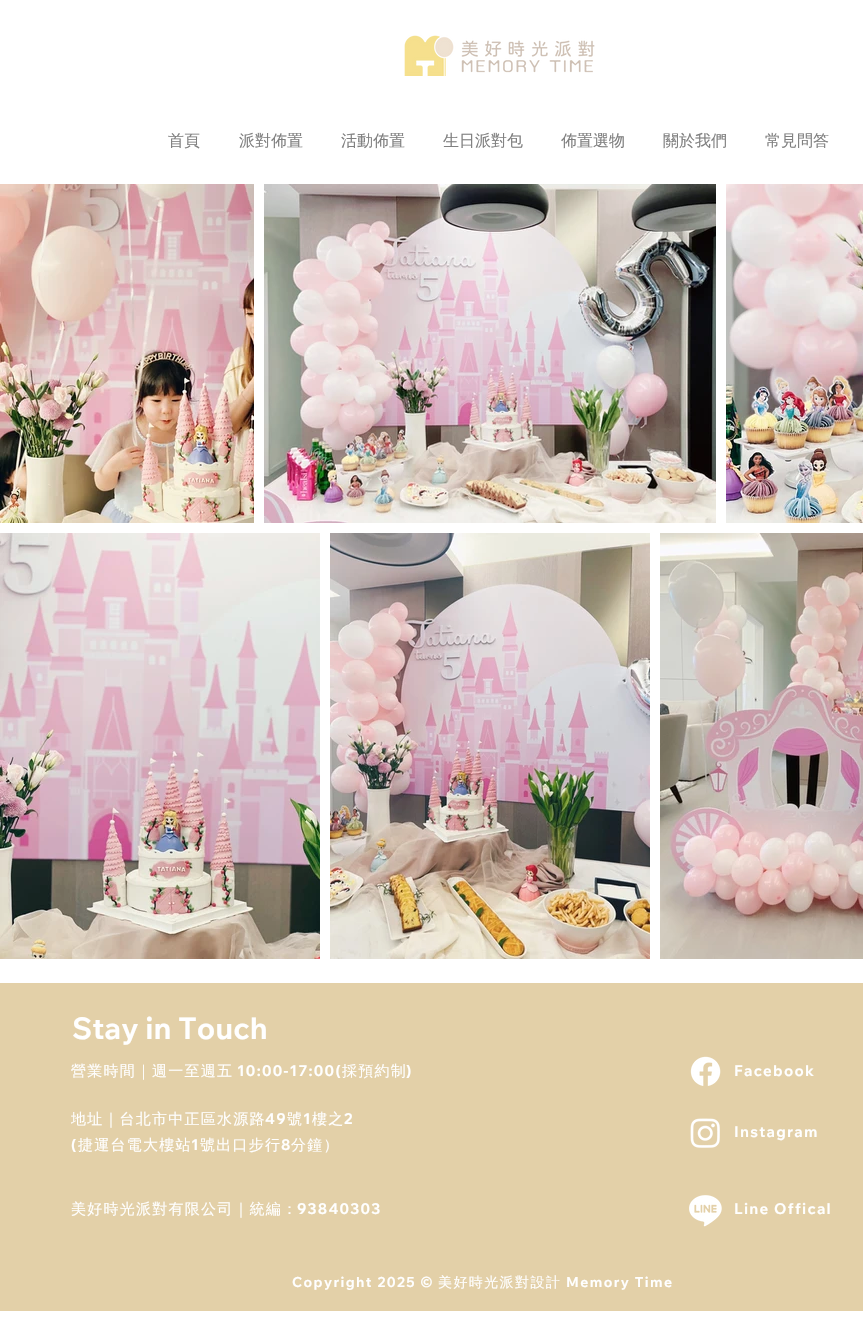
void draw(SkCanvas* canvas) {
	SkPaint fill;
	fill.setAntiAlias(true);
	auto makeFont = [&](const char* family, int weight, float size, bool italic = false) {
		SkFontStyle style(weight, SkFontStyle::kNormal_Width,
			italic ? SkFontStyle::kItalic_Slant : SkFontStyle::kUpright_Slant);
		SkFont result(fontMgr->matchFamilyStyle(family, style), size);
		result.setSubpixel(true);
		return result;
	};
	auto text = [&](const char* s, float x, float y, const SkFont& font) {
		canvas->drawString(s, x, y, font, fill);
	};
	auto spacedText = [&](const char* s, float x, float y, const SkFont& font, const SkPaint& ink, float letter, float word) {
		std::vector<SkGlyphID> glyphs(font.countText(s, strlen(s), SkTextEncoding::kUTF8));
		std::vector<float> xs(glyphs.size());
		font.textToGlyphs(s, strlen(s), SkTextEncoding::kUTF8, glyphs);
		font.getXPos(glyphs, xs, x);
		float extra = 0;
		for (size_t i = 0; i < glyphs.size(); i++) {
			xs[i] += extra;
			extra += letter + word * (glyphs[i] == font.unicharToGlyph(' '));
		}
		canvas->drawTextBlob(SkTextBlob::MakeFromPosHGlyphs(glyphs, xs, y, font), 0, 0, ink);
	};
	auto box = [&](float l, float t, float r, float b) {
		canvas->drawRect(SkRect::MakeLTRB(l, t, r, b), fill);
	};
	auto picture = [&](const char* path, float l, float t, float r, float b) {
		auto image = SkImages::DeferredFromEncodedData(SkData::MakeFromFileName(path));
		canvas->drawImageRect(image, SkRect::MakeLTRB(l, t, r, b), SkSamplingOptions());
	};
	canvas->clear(0xFFFFFFFF);
	picture("image0.png", 404, 35, 595, 76);
	picture("image1.png", 0, 184, 254, 523);
	picture("image2.png", 264, 184, 716, 523);
	picture("image3.png", 726, 184, 863, 523);
	picture("image4.png", 0, 533, 320, 959);
	picture("image5.png", 330, 533, 650, 959);
	picture("image6.png", 660, 533, 863, 959);
	fill.setColor(0xFFE3D0A8);
	box(0, 983, 863, 1311);
	picture("image7.png", 690, 1056, 721, 1086);
	picture("image8.png", 690, 1118, 720, 1148);
	picture("image9.png", 689, 1195, 722, 1227);
	auto font1 = makeFont("WenQuanYi Zen Hei", 500, 16);
	fill.setColor(0xFF808080);
	text("首頁", 168, 146, font1);
	text("派對佈置", 239, 146, font1);
	text("活動佈置", 341, 146, font1);
	text("生日派對包", 443, 146, font1);
	text("佈置選物", 561, 146, font1);
	text("關於我們", 663, 146, font1);
	text("常見問答", 765, 146, font1);
	auto font2 = makeFont("Wix Madefor Text", 700, 30);
	fill.setColor(0xFFFFFFFF);
	text("Stay in Touch", 72, 1039, font2);
	auto font3 = makeFont("WenQuanYi Zen Hei", 500, 15);
	spacedText("營業時間｜週一至週五", 71, 1076, font3, fill, 1.25f, 0);
	auto font4 = makeFont("Wix Madefor Text", 700, 15);
	spacedText("10:00-17:00(", 237, 1076, font4, fill, 1.25f, 0);
	spacedText("採預約制", 342, 1076, font3, fill, 1.25f, 0);
	spacedText(")", 406, 1076, font4, fill, 1.25f, 0);
	spacedText("Facebook", 734, 1076, font4, fill, 1.25f, 0);
	spacedText("地址｜台北市中正區水源路", 71, 1124, font3, fill, 1.25f, 0);
	spacedText("49", 265, 1124, font4, fill, 1.25f, 0);
	spacedText("號", 287, 1124, font3, fill, 1.25f, 0);
	spacedText("1", 303, 1124, font4, fill, 1.25f, 0);
	spacedText("樓之", 312, 1124, font3, fill, 1.25f, 0);
	spacedText("2", 344, 1124, font4, fill, 1.25f, 0);
	spacedText("(", 71, 1150, font4, fill, 1.25f, 0);
	spacedText("捷運台電大樓站", 78, 1150, font3, fill, 1.25f, 0);
	spacedText("1", 191, 1150, font4, fill, 1.25f, 0);
	spacedText("號出口步行", 200, 1150, font3, fill, 1.25f, 0);
	spacedText("8", 281, 1150, font4, fill, 1.25f, 0);
	spacedText("分鐘）", 291, 1150, font3, fill, 1.25f, 0);
	spacedText("Instagram", 734, 1137, font4, fill, 1.25f, 0);
	spacedText("美好時光派對有限公司｜統編：", 71, 1214, font3, fill, 1.25f, 0);
	spacedText("93840303", 297, 1214, font4, fill, 1.25f, 0);
	spacedText("Line Offical", 734, 1214, font4, fill, 1.25f, 0);
	auto font5 = makeFont("Wix Madefor Text", 700, 14);
	spacedText("Copyright 2025 ©", 292, 1287, font5, fill, 1.4f, 0);
	auto font6 = makeFont("WenQuanYi Zen Hei", 500, 14);
	spacedText("美好時光派對設計", 438, 1287, font6, fill, 1.4f, 0);
	spacedText("Memory Time", 566, 1287, font5, fill, 1.4f, 0);
}
